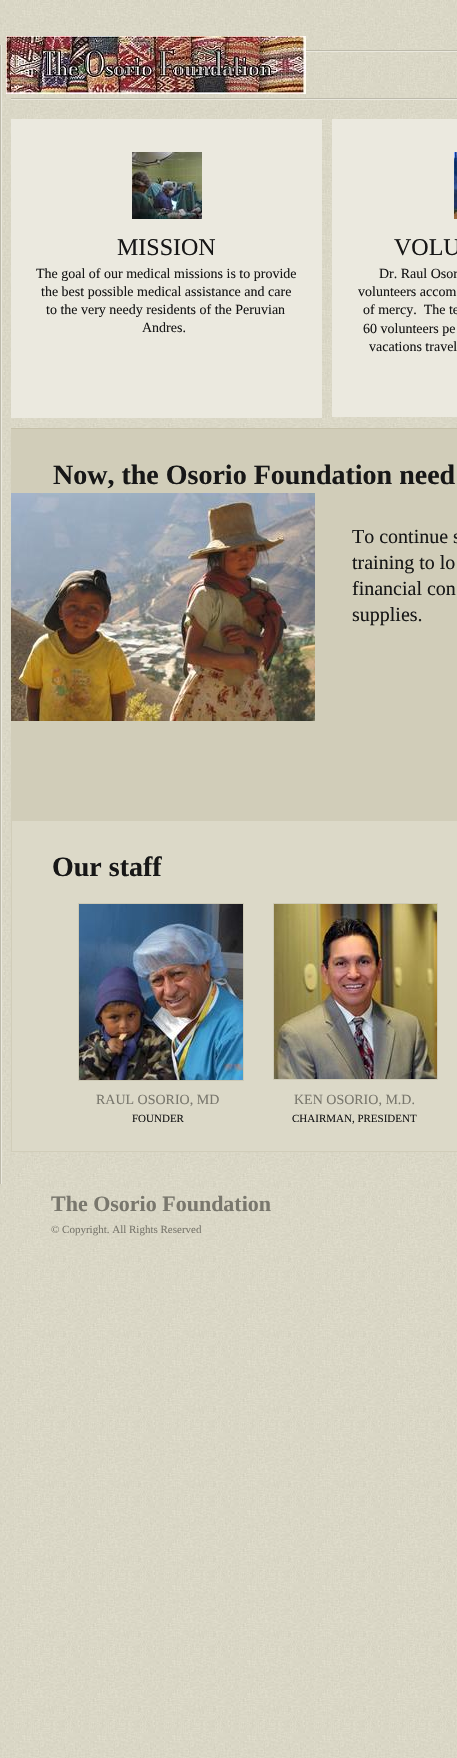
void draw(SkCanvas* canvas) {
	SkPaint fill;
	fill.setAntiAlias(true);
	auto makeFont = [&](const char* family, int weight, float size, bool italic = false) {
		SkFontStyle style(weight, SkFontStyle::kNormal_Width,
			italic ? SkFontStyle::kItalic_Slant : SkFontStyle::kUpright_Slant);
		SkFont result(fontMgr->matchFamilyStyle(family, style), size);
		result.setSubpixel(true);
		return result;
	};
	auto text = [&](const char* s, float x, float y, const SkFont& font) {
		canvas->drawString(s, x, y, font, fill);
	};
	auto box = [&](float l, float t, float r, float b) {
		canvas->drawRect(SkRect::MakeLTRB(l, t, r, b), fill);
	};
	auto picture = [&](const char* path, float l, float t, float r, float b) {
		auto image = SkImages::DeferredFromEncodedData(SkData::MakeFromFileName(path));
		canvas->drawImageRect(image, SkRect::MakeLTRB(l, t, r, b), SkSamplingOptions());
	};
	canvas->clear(0xFFFFFFFF);
	picture("image0.png", 0, 0, 457, 1758);
	fill.setColor(0xFFEAE8DE);
	box(1, 45, 2, 1184);
	fill.setColor(0xFFBDBAAB);
	box(0, 45, 1, 1184);
	picture("image1.png", 6, 36, 306, 94);
	box(306, 50, 457, 51);
	fill.setColor(0xFFEAE8DE);
	box(306, 51, 457, 52);
	fill.setColor(0xFFBDBAAB);
	box(11, 98, 457, 99);
	fill.setColor(0xFFEAE8DE);
	box(11, 99, 457, 100);
	fill.setColor(0xFFEBE9DF);
	box(11, 119, 322, 418);
	box(332, 119, 457, 417);
	picture("image2.png", 132, 152, 202, 219);
	picture("image3.png", 454, 152, 457, 219);
	fill.setColor(0xFFD1CDB9);
	box(11, 429, 457, 820);
	fill.setColor(0xFFC6C1AA);
	box(11, 428, 457, 429);
	picture("image4.png", 11, 493, 315, 721);
	fill.setColor(0xFFDCD9C8);
	canvas->drawRect(SkRect::MakeLTRB(11.5f, 820.5f, 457.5f, 1151.5f), fill);
	fill.setStyle(SkPaint::kStroke_Style);
	fill.setStrokeWidth(1);
	fill.setColor(0xFFD1CDB9);
	canvas->drawRect(SkRect::MakeLTRB(11.5f, 820.5f, 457.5f, 1151.5f), fill);
	fill.setColor(0xFFCECAB6);
	canvas->drawRect(SkRect::MakeLTRB(78.5f, 903.5f, 243.5f, 1080.5f), fill);
	picture("image5.png", 79, 904, 243, 1080);
	canvas->drawRect(SkRect::MakeLTRB(273.5f, 903.5f, 437.5f, 1079.5f), fill);
	picture("image6.png", 274, 904, 437, 1079);
	auto font1 = makeFont("Liberation Serif", 400, 24);
	fill.setStyle(SkPaint::kFill_Style);
	fill.setColor(0xFF171717);
	text("MISSION", 117, 255, font1);
	auto font2 = makeFont("Liberation Serif", 400, 14);
	text("The goal of our medical missions is to provide", 36, 278, font2);
	text("the best possible medical assistance and care", 41, 296, font2);
	text("to the very needy residents of the Peruvian", 46, 314, font2);
	text("Andres.", 142, 332, font2);
	text("VOLU", 394, 255, font1);
	text("Dr. Raul Osor", 379, 278, font2);
	text("volunteers accom", 358, 296, font2);
	text("of mercy.  The te", 363, 314, font2);
	text("60 volunteers pe", 363, 333, font2);
	text("vacations travel", 369, 351, font2);
	auto font3 = makeFont("Liberation Serif", 700, 28);
	text("Now, the Osorio Foundation need", 53, 484, font3);
	auto font4 = makeFont("Liberation Serif", 400, 20);
	text("To continue s", 352, 543, font4);
	text("training to lo", 352, 569, font4);
	text("financial con", 352, 595, font4);
	text("supplies.", 352, 621, font4);
	text("Our staff", 52, 876, font3);
	fill.setColor(0xFF79776D);
	text("RAUL OSORIO, MD", 96, 1104, font2);
	auto font5 = makeFont("Liberation Serif", 400, 11);
	fill.setColor(0xFF171717);
	text("FOUNDER", 132, 1122, font5);
	fill.setColor(0xFF79776D);
	text("KEN OSORIO, M.D.", 294, 1104, font2);
	fill.setColor(0xFF171717);
	text("CHAIRMAN, PRESIDENT", 292, 1122, font5);
	auto font6 = makeFont("Liberation Serif", 700, 22);
	fill.setColor(0xFF79776D);
	text("The Osorio Foundation", 51, 1211, font6);
	text("© Copyright. All Rights Reserved", 51, 1233, font5);
}
